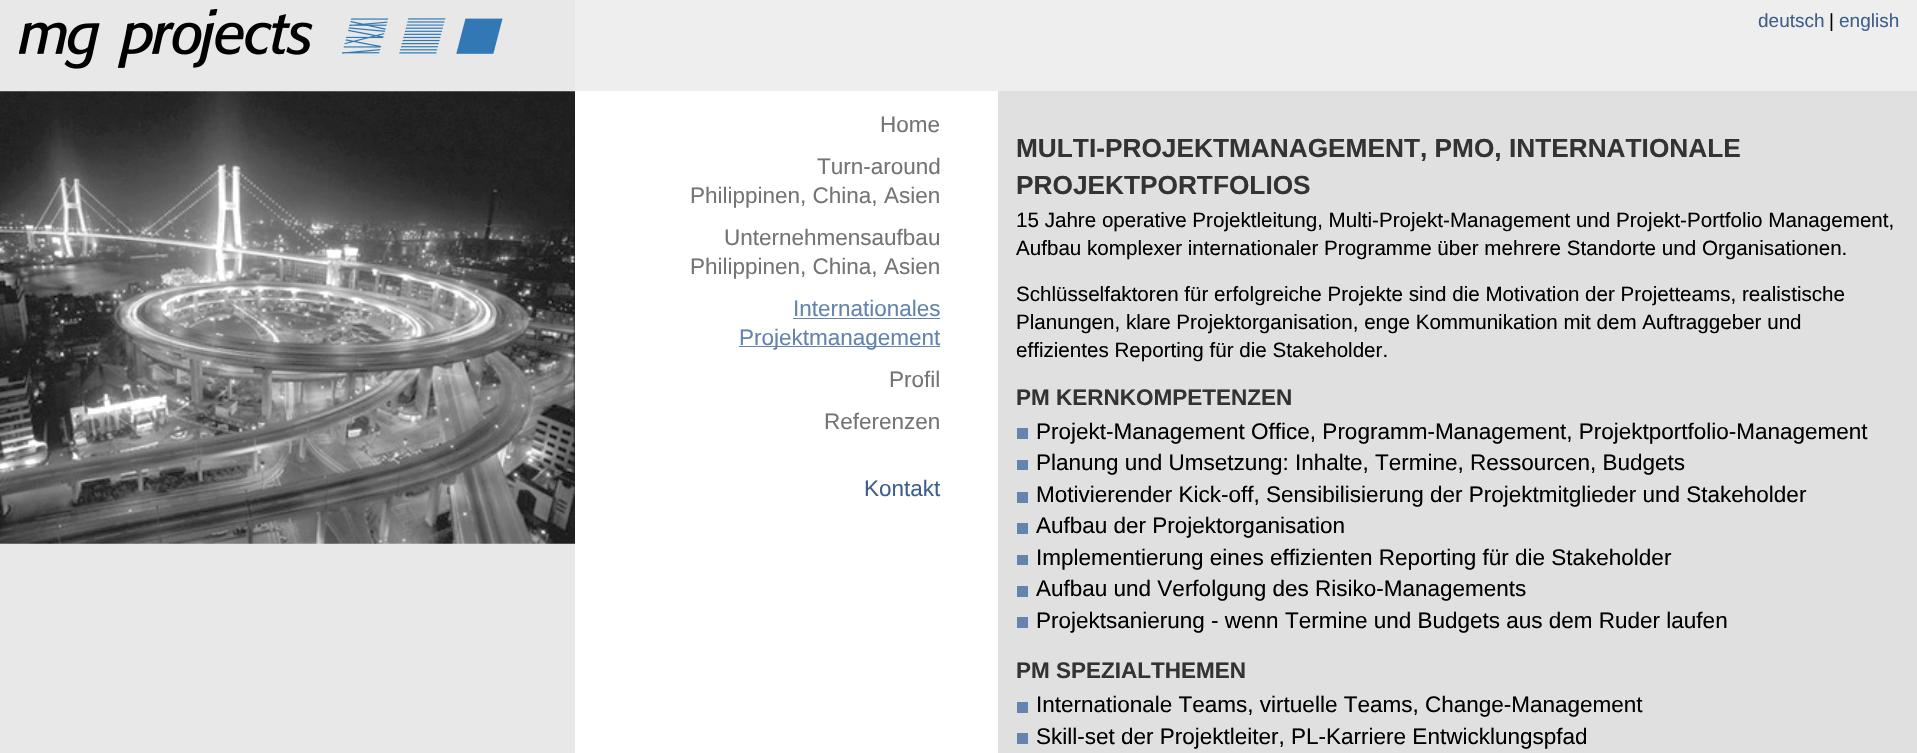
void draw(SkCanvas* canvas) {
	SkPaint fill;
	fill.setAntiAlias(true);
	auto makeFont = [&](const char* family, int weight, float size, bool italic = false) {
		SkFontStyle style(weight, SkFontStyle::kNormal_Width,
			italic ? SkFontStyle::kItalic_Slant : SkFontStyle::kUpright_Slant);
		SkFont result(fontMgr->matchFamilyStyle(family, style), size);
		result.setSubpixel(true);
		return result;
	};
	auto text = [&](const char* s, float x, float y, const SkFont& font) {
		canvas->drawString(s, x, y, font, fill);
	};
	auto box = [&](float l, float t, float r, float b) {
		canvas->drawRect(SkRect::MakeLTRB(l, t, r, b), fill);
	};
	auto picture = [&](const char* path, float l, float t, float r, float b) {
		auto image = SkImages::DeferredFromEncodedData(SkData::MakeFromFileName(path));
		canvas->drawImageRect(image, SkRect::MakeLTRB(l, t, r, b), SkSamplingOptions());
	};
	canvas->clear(0xFFEEEEEE);
	fill.setColor(0xFFE8E8E8);
	box(0, 0, 575, 753);
	picture("image0.png", 19, 9, 503, 69);
	picture("image1.png", 0, 91, 575, 544);
	fill.setColor(0xFFFFFFFF);
	box(575, 91, 998, 753);
	fill.setColor(0xFF6484AE);
	box(793, 318, 940, 319);
	box(739, 346, 940, 347);
	fill.setColor(0xFFE1E0E0);
	box(998, 91, 1917, 753);
	fill.setColor(0xFF6484AD);
	box(1017, 428, 1028, 439);
	box(1017, 460, 1028, 470);
	box(1017, 492, 1028, 503);
	box(1017, 523, 1028, 534);
	box(1017, 555, 1028, 565);
	box(1017, 586, 1028, 597);
	box(1017, 617, 1028, 628);
	box(1017, 702, 1028, 713);
	box(1017, 733, 1028, 744);
	auto font1 = makeFont("Liberation Sans", 400, 19);
	fill.setColor(0xFF3E5F8B);
	text("deutsch", 1758, 27, font1);
	fill.setColor(0xFF000000);
	text("|", 1829, 27, font1);
	fill.setColor(0xFF3E5F8B);
	text("english", 1839, 27, font1);
	auto font2 = makeFont("Liberation Sans", 400, 22.5f);
	fill.setColor(0xFF747474);
	text("Home", 880, 132, font2);
	text("Turn-around", 817, 174, font2);
	text("Philippinen, China, Asien", 690, 203, font2);
	text("Unternehmensaufbau", 724, 245, font2);
	text("Philippinen, China, Asien", 690, 274, font2);
	fill.setColor(0xFF6484AE);
	text("Internationales", 793, 316, font2);
	text("Projektmanagement", 739, 345, font2);
	fill.setColor(0xFF747474);
	text("Profil", 889, 387, font2);
	text("Referenzen", 824, 429, font2);
	fill.setColor(0xFF3E5F8B);
	text("Kontakt", 864, 496, font2);
	auto font3 = makeFont("Liberation Sans", 700, 26.25f);
	fill.setColor(0xFF333333);
	text("MULTI-PROJEKTMANAGEMENT, PMO, INTERNATIONALE", 1016, 157, font3);
	text("PROJEKTPORTFOLIOS", 1016, 194, font3);
	auto font4 = makeFont("Liberation Sans", 400, 20.6f);
	fill.setColor(0xFF000000);
	text("15 Jahre operative Projektleitung, Multi-Projekt-Management und Projekt-Portfolio Management,", 1016, 227, font4);
	text("Aufbau komplexer internationaler Programme über mehrere Standorte und Organisationen.", 1016, 255, font4);
	text("Schlüsselfaktoren für erfolgreiche Projekte sind die Motivation der Projetteams, realistische", 1016, 301, font4);
	text("Planungen, klare Projektorganisation, enge Kommunikation mit dem Auftraggeber und", 1016, 329, font4);
	text("effizientes Reporting für die Stakeholder.", 1016, 357, font4);
	auto font5 = makeFont("Liberation Sans", 700, 22.5f);
	fill.setColor(0xFF333333);
	text("PM KERNKOMPETENZEN", 1016, 405, font5);
	fill.setColor(0xFF000000);
	text("Projekt-Management Office, Programm-Management, Projektportfolio-Management", 1036, 439, font2);
	text("Planung und Umsetzung: Inhalte, Termine, Ressourcen, Budgets", 1036, 470, font2);
	text("Motivierender Kick-off, Sensibilisierung der Projektmitglieder und Stakeholder", 1036, 502, font2);
	text("Aufbau der Projektorganisation", 1036, 533, font2);
	text("Implementierung eines effizienten Reporting für die Stakeholder", 1036, 565, font2);
	text("Aufbau und Verfolgung des Risiko-Managements", 1036, 596, font2);
	text("Projektsanierung - wenn Termine und Budgets aus dem Ruder laufen", 1036, 628, font2);
	fill.setColor(0xFF333333);
	text("PM SPEZIALTHEMEN", 1016, 678, font5);
	fill.setColor(0xFF000000);
	text("Internationale Teams, virtuelle Teams, Change-Management", 1036, 712, font2);
	text("Skill-set der Projektleiter, PL-Karriere Entwicklungspfad", 1036, 744, font2);
}
